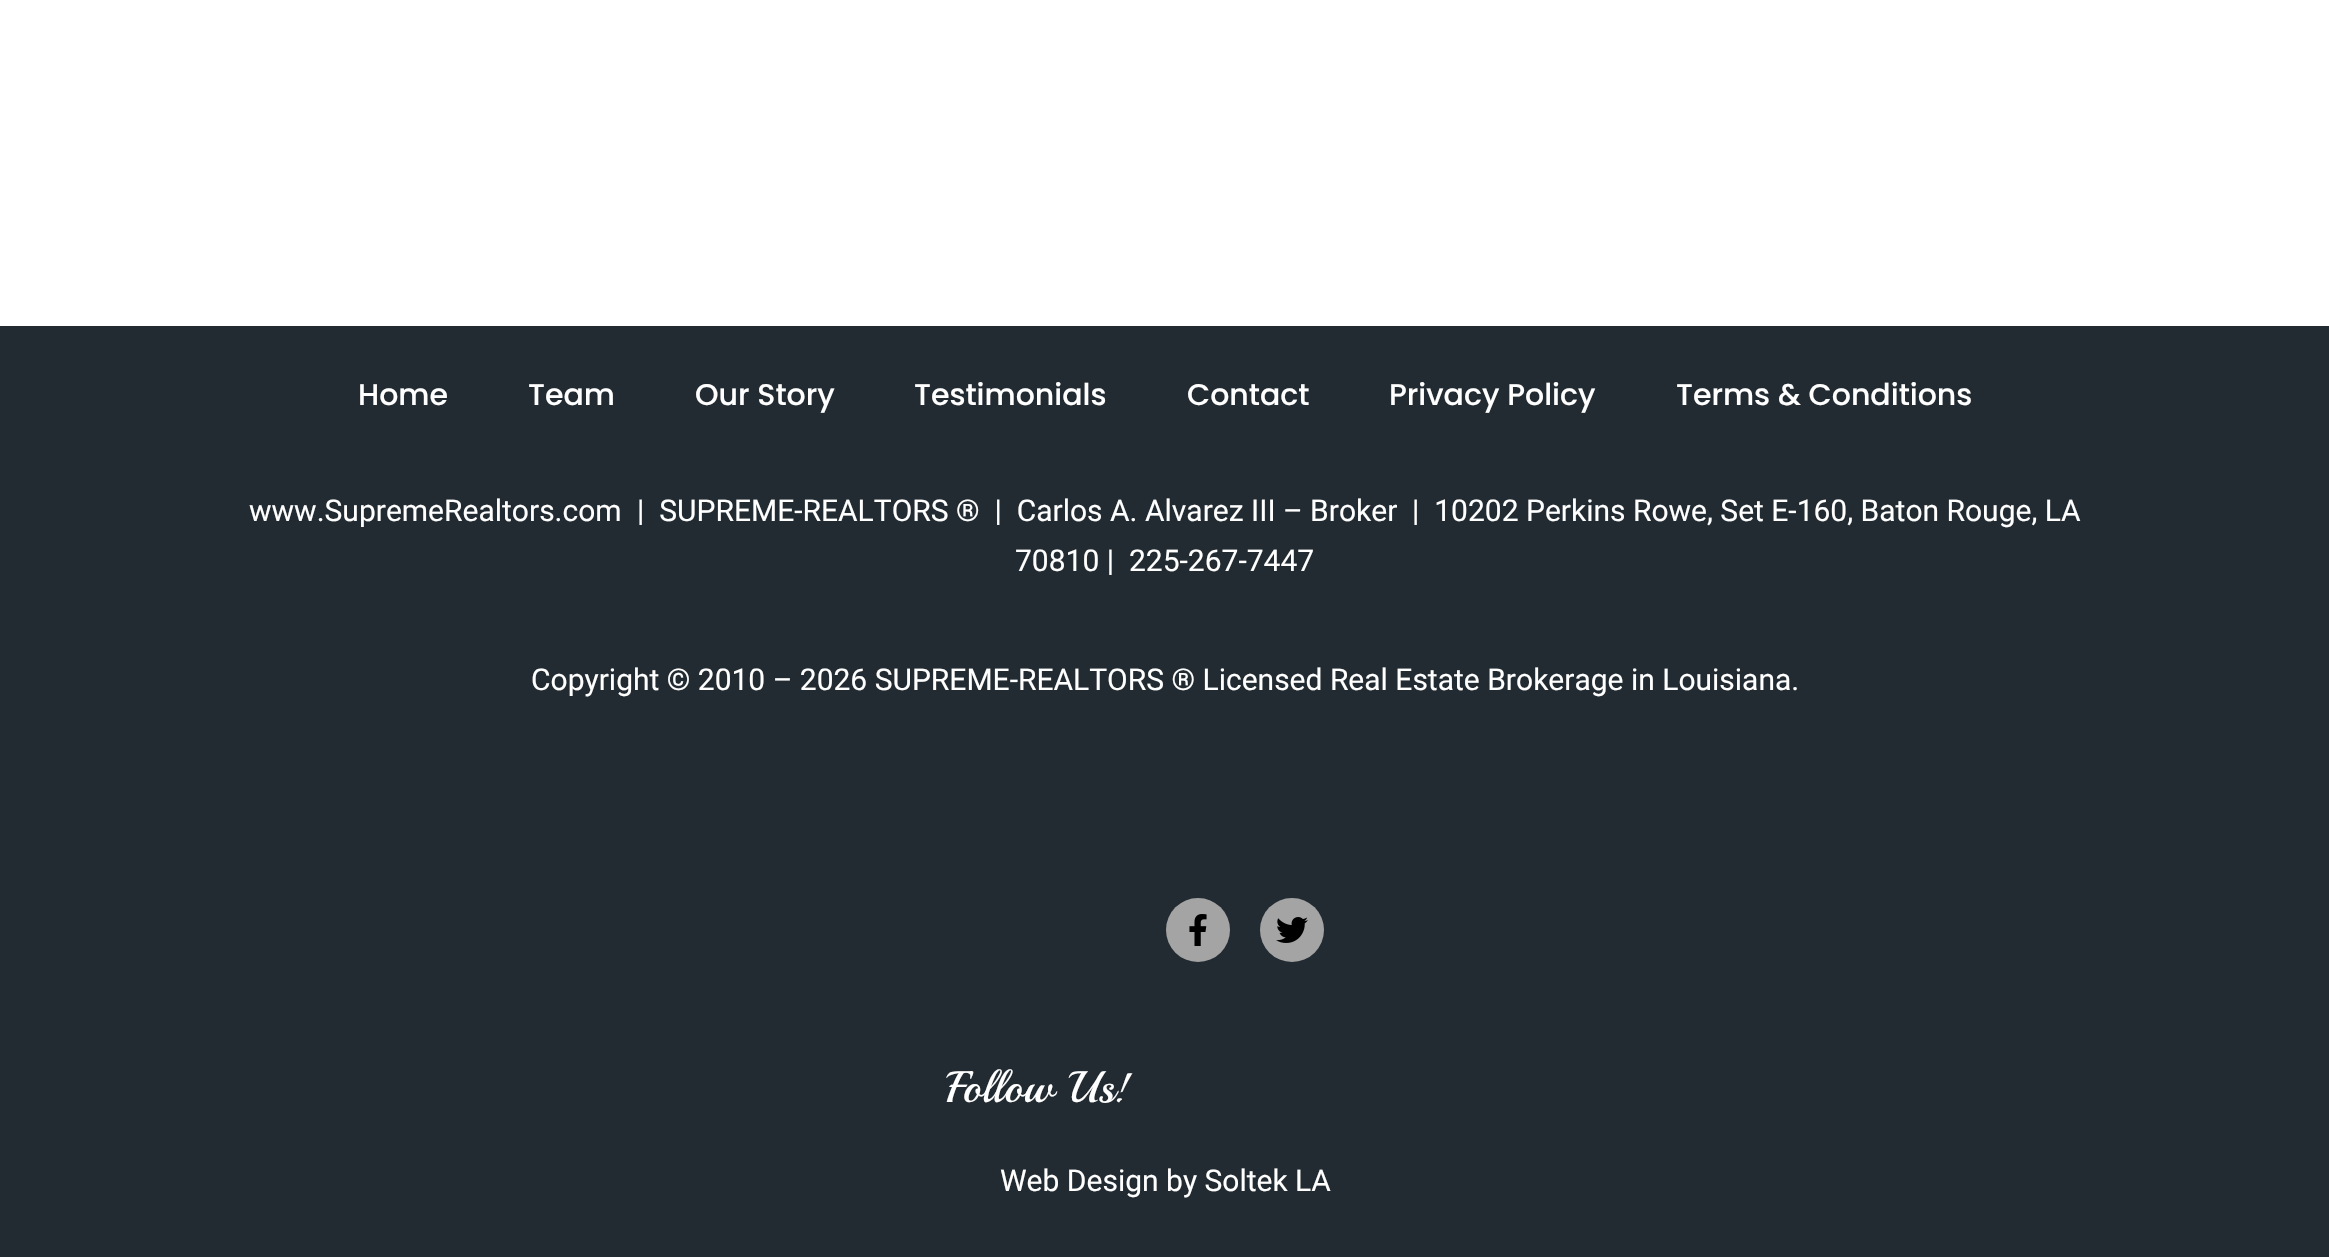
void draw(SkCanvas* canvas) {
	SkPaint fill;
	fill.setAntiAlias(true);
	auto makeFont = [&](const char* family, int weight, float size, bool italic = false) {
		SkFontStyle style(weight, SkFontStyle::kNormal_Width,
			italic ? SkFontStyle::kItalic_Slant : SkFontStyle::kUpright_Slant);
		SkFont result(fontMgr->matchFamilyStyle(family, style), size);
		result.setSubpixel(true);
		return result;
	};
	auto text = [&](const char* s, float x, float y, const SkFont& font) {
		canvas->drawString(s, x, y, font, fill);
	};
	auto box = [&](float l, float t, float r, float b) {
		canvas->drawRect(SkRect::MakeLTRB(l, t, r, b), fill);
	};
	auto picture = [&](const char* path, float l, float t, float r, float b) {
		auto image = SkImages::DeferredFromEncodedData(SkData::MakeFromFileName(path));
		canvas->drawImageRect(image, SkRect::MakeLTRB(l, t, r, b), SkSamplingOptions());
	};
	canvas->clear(0xFFFFFFFF);
	fill.setColor(0xFF222B32);
	box(0, 326, 2329, 1257);
	fill.setColor(0xFFA4A4A4);
	canvas->drawCircle(1198, 930, 32, fill);
	picture("image0.png", 1189, 914, 1207, 946);
	canvas->drawCircle(1292, 930, 32, fill);
	picture("image1.png", 1276, 917, 1308, 943);
	auto font1 = makeFont("Poppins", 500, 30);
	fill.setColor(0xFFFFFFFF);
	text("Home", 358, 405, font1);
	text("Team", 528, 405, font1);
	text("Our Story", 695, 405, font1);
	text("Testimonials", 914, 405, font1);
	text("Contact", 1187, 405, font1);
	text("Privacy Policy", 1389, 405, font1);
	text("Terms & Conditions", 1676, 405, font1);
	auto font2 = makeFont("Roboto", 400, 30);
	text("www.SupremeRealtors.com", 249, 521, font2);
	text("|  SUPREME-REALTORS ®  |  Carlos A. Alvarez III – Broker", 637, 521, font2);
	text("|  10202 Perkins Rowe, Set E-160, Baton Rouge, LA", 1412, 521, font2);
	text("70810 |", 1015, 571, font2);
	text("225-267-7447", 1129, 571, font2);
	text("Copyright © 2010 – 2026 SUPREME-REALTORS ® Licensed Real Estate Brokerage in Louisiana.", 531, 690, font2);
	auto font3 = makeFont("Playball", 400, 44);
	text("Follow Us!", 946, 1102, font3);
	text("Web Design by Soltek LA", 1000, 1191, font2);
}
